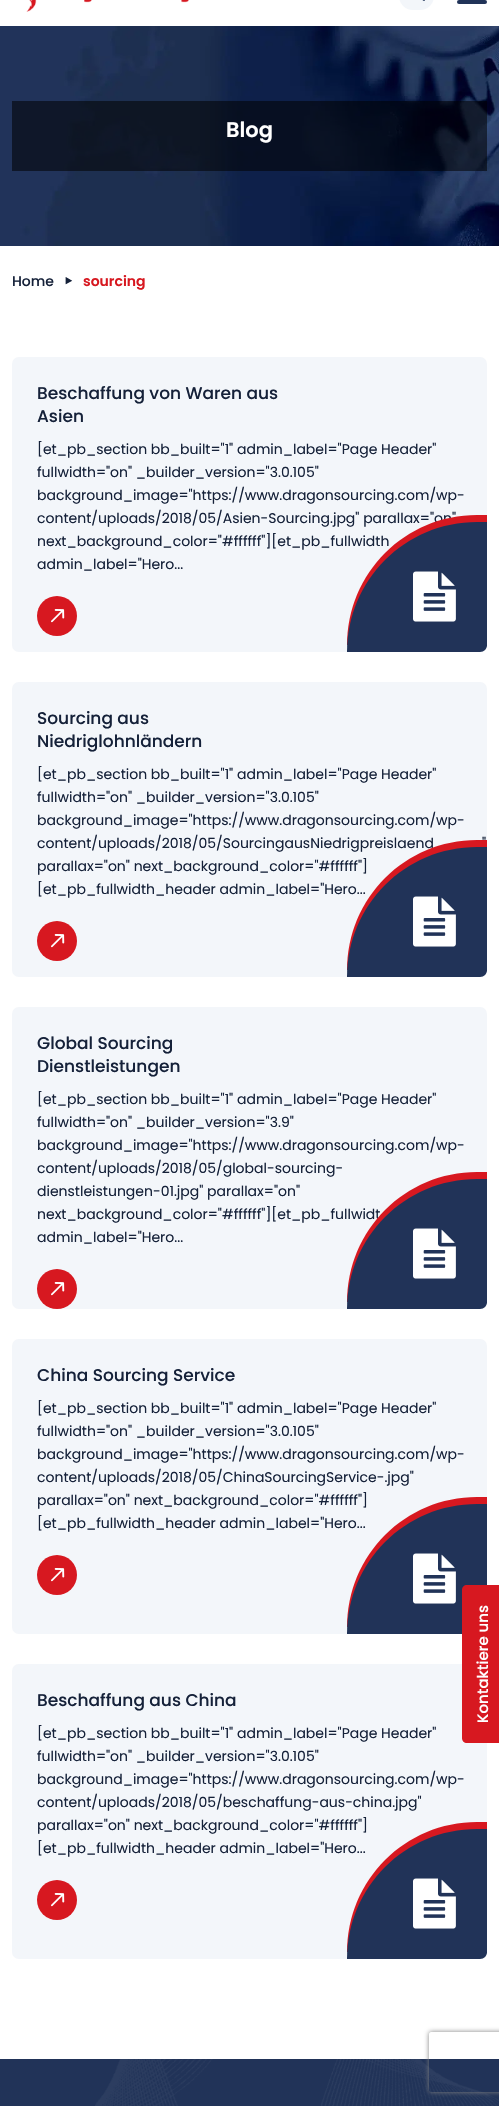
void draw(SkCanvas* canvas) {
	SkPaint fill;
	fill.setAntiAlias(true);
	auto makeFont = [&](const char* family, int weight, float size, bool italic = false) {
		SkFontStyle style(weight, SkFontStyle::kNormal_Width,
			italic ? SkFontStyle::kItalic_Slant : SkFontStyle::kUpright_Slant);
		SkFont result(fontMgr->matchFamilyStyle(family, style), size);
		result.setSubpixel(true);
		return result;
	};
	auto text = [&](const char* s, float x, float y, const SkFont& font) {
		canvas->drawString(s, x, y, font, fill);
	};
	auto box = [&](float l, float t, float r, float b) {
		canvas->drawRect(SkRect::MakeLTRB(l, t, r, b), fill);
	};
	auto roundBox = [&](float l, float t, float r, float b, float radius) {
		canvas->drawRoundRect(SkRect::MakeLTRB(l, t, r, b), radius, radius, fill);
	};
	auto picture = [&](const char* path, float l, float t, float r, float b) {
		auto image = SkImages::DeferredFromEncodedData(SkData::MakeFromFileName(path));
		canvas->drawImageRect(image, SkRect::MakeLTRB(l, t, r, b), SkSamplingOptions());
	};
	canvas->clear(0xFFFFFFFF);
	picture("image0.png", 26, 0, 189, 12);
	fill.setColor(0xFFF3F6FA);
	roundBox(399, -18, 434, 10, 17.5f);
	picture("image1.png", 422, 0, 425, 1);
	fill.setColor(0xFF213358);
	roundBox(457, 0, 487, 4, 2);
	picture("image2.png", 0, 26, 499, 246);
	fill.setColor(0x8C000000);
	box(12, 101, 487, 171);
	fill.setColor(0xFFF3F6FA);
	roundBox(12, 357, 487, 652, 7);
	fill.setColor(0xFFD71820);
	canvas->drawCircle(57, 616, 20, fill);
	picture("image3.png", 51, 609, 65, 623);
	fill.setColor(0xFFF3F6FA);
	roundBox(12, 682, 487, 977, 7);
	fill.setColor(0xFFD71820);
	canvas->drawCircle(57, 941, 20, fill);
	picture("image3.png", 51, 934, 65, 948);
	fill.setColor(0xFFF3F6FA);
	roundBox(12, 1007, 487, 1309, 7);
	fill.setColor(0xFFD71820);
	canvas->drawCircle(57, 1289, 20, fill);
	picture("image3.png", 51, 1282, 65, 1296);
	fill.setColor(0xFFF3F6FA);
	roundBox(12, 1339, 487, 1634, 7);
	fill.setColor(0xFFD71820);
	canvas->drawCircle(57, 1575, 20, fill);
	picture("image3.png", 51, 1568, 65, 1582);
	fill.setColor(0xFFF3F6FA);
	roundBox(12, 1664, 487, 1959, 7);
	fill.setColor(0xFFD71820);
	canvas->drawCircle(57, 1900, 20, fill);
	picture("image3.png", 51, 1893, 65, 1907);
	fill.setColor(0xFF213358);
	box(0, 2059, 499, 2106);
	picture("image5.png", 95, 2059, 499, 2106);
	canvas->save();
	canvas->clipPath(SkPathBuilder(SkPathFillType::kEvenOdd).moveTo(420, 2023).lineTo(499, 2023).lineTo(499, 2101).lineTo(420, 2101).close().moveTo(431, 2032).lineTo(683, 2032).cubicTo(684, 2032, 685, 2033, 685, 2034).lineTo(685, 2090).cubicTo(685, 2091, 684, 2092, 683, 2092).lineTo(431, 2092).cubicTo(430, 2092, 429, 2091, 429, 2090).lineTo(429, 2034).cubicTo(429, 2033, 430, 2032, 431, 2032).close().detach(), true);
	fill.setColor(0xFF808080);
	fill.setMaskFilter(SkMaskFilter::MakeBlur(kNormal_SkBlurStyle, 2.5f));
	canvas->drawRoundRect(SkRect::MakeLTRB(429, 2032, 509, 2092), 2, 2, fill);
	fill.setMaskFilter(nullptr);
	canvas->restore();
	auto font1 = makeFont("Poppins", 600, 21);
	fill.setColor(0xFFFFFFFF);
	text("Blog", 226, 137, font1);
	auto font2 = makeFont("Poppins", 500, 14);
	fill.setColor(0xFF152139);
	text("Home", 12, 286, font2);
	auto font3 = makeFont("Noto Sans", 400, 25);
	text("‣", 64, 290, font3);
	auto font4 = makeFont("Poppins", 600, 14);
	fill.setColor(0xFFD71820);
	text("sourcing", 83, 286, font4);
	auto font5 = makeFont("Poppins", 500, 17);
	fill.setColor(0xFF152139);
	text("Beschaffung von Waren aus", 37, 399, font5);
	text("Asien", 37, 422, font5);
	auto font6 = makeFont("Poppins", 400, 14);
	text("[et_pb_section bb_built=\"1\" admin_label=\"Page Header\"", 37, 454, font6);
	text("fullwidth=\"on\" _builder_version=\"3.0.105\"", 37, 477, font6);
	text("background_image=\"https://www.dragonsourcing.com/wp-", 37, 500, font6);
	text("content/uploads/2018/05/Asien-Sourcing.jpg\" parallax=\"on\"", 37, 523, font6);
	text("next_background_color=\"#ffffff\"][et_pb_fullwidth", 37, 546, font6);
	text("admin_label=\"Hero...", 37, 569, font6);
	fill.setColor(0xFFD71820);
	canvas->drawPath(SkPathBuilder().moveTo(477, 515).lineTo(487, 515).lineTo(487, 645).lineTo(347, 645).cubicTo(347, 573, 405, 515, 477, 515).close().detach(), fill);
	fill.setColor(0xFF213358);
	canvas->drawPath(SkPathBuilder().moveTo(477, 522).lineTo(487, 522).lineTo(487, 645).cubicTo(487, 649, 484, 652, 480, 652).lineTo(347, 652).cubicTo(347, 580, 405, 522, 477, 522).close().detach(), fill);
	picture("image4.png", 413, 571, 456, 622);
	fill.setColor(0xFF152139);
	text("Sourcing aus", 37, 724, font5);
	text("Niedriglohnländern", 37, 747, font5);
	text("[et_pb_section bb_built=\"1\" admin_label=\"Page Header\"", 37, 779, font6);
	text("fullwidth=\"on\" _builder_version=\"3.0.105\"", 37, 802, font6);
	text("background_image=\"https://www.dragonsourcing.com/wp-", 37, 825, font6);
	text("content/uploads/2018/05/SourcingausNiedrigpreislaend", 37, 848, font6);
	text("\"", 482, 848, font6);
	text("parallax=\"on\" next_background_color=\"#ffffff\"]", 37, 871, font6);
	text("[et_pb_fullwidth_header admin_label=\"Hero...", 37, 894, font6);
	fill.setColor(0xFFD71820);
	canvas->drawPath(SkPathBuilder().moveTo(477, 840).lineTo(487, 840).lineTo(487, 970).lineTo(347, 970).cubicTo(347, 898, 405, 840, 477, 840).close().detach(), fill);
	fill.setColor(0xFF213358);
	canvas->drawPath(SkPathBuilder().moveTo(477, 847).lineTo(487, 847).lineTo(487, 970).cubicTo(487, 974, 484, 977, 480, 977).lineTo(347, 977).cubicTo(347, 905, 405, 847, 477, 847).close().detach(), fill);
	picture("image4.png", 413, 896, 456, 947);
	fill.setColor(0xFF152139);
	text("Global Sourcing", 37, 1049, font5);
	text("Dienstleistungen", 37, 1072, font5);
	text("[et_pb_section bb_built=\"1\" admin_label=\"Page Header\"", 37, 1104, font6);
	text("fullwidth=\"on\" _builder_version=\"3.9\"", 37, 1127, font6);
	text("background_image=\"https://www.dragonsourcing.com/wp-", 37, 1150, font6);
	text("content/uploads/2018/05/global-sourcing-", 37, 1173, font6);
	text("dienstleistungen-01.jpg\" parallax=\"on\"", 37, 1196, font6);
	text("next_background_color=\"#ffffff\"][et_pb_fullwidt", 37, 1219, font6);
	text("admin_label=\"Hero...", 37, 1242, font6);
	fill.setColor(0xFFD71820);
	canvas->drawPath(SkPathBuilder().moveTo(477, 1172).lineTo(487, 1172).lineTo(487, 1302).lineTo(347, 1302).cubicTo(347, 1230, 405, 1172, 477, 1172).close().detach(), fill);
	fill.setColor(0xFF213358);
	canvas->drawPath(SkPathBuilder().moveTo(477, 1179).lineTo(487, 1179).lineTo(487, 1302).cubicTo(487, 1306, 484, 1309, 480, 1309).lineTo(347, 1309).cubicTo(347, 1237, 405, 1179, 477, 1179).close().detach(), fill);
	picture("image4.png", 413, 1228, 456, 1279);
	fill.setColor(0xFF152139);
	text("China Sourcing Service", 37, 1381, font5);
	text("[et_pb_section bb_built=\"1\" admin_label=\"Page Header\"", 37, 1413, font6);
	text("fullwidth=\"on\" _builder_version=\"3.0.105\"", 37, 1436, font6);
	text("background_image=\"https://www.dragonsourcing.com/wp-", 37, 1459, font6);
	text("content/uploads/2018/05/ChinaSourcingService-.jpg\"", 37, 1482, font6);
	text("parallax=\"on\" next_background_color=\"#ffffff\"]", 37, 1505, font6);
	text("[et_pb_fullwidth_header admin_label=\"Hero...", 37, 1528, font6);
	fill.setColor(0xFFD71820);
	canvas->drawPath(SkPathBuilder().moveTo(477, 1497).lineTo(487, 1497).lineTo(487, 1627).lineTo(347, 1627).cubicTo(347, 1555, 405, 1497, 477, 1497).close().detach(), fill);
	fill.setColor(0xFF213358);
	canvas->drawPath(SkPathBuilder().moveTo(477, 1504).lineTo(487, 1504).lineTo(487, 1627).cubicTo(487, 1631, 484, 1634, 480, 1634).lineTo(347, 1634).cubicTo(347, 1562, 405, 1504, 477, 1504).close().detach(), fill);
	picture("image4.png", 413, 1553, 456, 1604);
	fill.setColor(0xFF152139);
	text("Beschaffung aus China", 37, 1706, font5);
	text("[et_pb_section bb_built=\"1\" admin_label=\"Page Header\"", 37, 1738, font6);
	text("fullwidth=\"on\" _builder_version=\"3.0.105\"", 37, 1761, font6);
	text("background_image=\"https://www.dragonsourcing.com/wp-", 37, 1784, font6);
	text("content/uploads/2018/05/beschaffung-aus-china.jpg\"", 37, 1807, font6);
	text("parallax=\"on\" next_background_color=\"#ffffff\"]", 37, 1830, font6);
	text("[et_pb_fullwidth_header admin_label=\"Hero...", 37, 1853, font6);
	fill.setColor(0xFFD71820);
	canvas->drawPath(SkPathBuilder().moveTo(477, 1822).lineTo(487, 1822).lineTo(487, 1952).lineTo(347, 1952).cubicTo(347, 1880, 405, 1822, 477, 1822).close().detach(), fill);
	fill.setColor(0xFF213358);
	canvas->drawPath(SkPathBuilder().moveTo(477, 1829).lineTo(487, 1829).lineTo(487, 1952).cubicTo(487, 1956, 484, 1959, 480, 1959).lineTo(347, 1959).cubicTo(347, 1887, 405, 1829, 477, 1829).close().detach(), fill);
	picture("image4.png", 413, 1878, 456, 1929);
	fill.setColor(0xFFD71820);
	canvas->drawPath(SkPathBuilder().moveTo(462, 1738).lineTo(462, 1590).cubicTo(462, 1587, 464, 1585, 467, 1585).lineTo(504, 1585).lineTo(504, 1743).lineTo(467, 1743).cubicTo(464, 1743, 462, 1741, 462, 1738).close().detach(), fill);
	auto font7 = makeFont("Poppins", 500, 15);
	fill.setColor(0xFFFFFFFF);
	canvas->save();
	canvas->rotate(-90, 488, 1723);
	text("Kontaktiere uns", 488, 1723, font7);
	canvas->restore();
}
